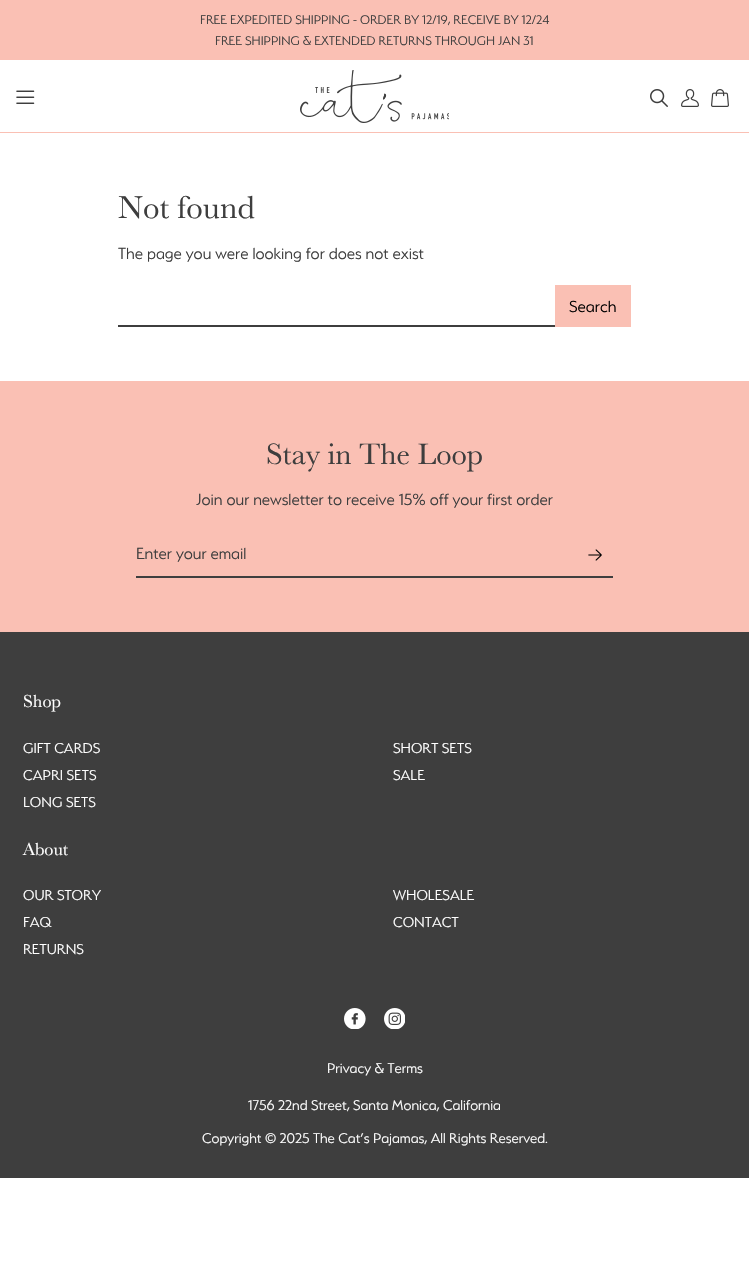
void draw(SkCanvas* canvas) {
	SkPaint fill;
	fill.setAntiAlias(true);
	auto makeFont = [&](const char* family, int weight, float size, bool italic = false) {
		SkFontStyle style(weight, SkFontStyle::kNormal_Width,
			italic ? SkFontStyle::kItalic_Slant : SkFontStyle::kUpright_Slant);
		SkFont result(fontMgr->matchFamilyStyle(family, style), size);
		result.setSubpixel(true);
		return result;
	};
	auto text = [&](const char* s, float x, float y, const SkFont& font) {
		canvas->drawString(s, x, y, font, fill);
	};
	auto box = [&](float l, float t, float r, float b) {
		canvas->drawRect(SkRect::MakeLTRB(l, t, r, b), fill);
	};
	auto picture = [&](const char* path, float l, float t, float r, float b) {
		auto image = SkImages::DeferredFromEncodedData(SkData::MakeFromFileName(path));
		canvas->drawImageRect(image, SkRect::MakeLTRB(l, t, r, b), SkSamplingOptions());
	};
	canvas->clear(0xFFFFFFFF);
	fill.setColor(0xFFFAC0B4);
	box(0, 0, 749, 60);
	box(0, 132, 749, 133);
	picture("image0.png", 16, 90, 35, 104);
	picture("image1.png", 300, 70, 449, 123);
	picture("image2.png", 650, 89, 668, 107);
	picture("image3.png", 681, 89, 699, 107);
	picture("image4.png", 711, 89, 729, 107);
	fill.setColor(0xFF3E3E3E);
	box(118, 325, 556, 327);
	fill.setColor(0xFFFAC0B4);
	box(555, 285, 631, 327);
	box(0, 381, 749, 632);
	fill.setColor(0xFF3E3E3E);
	box(136, 576, 613, 578);
	picture("image5.png", 588, 549, 602, 561);
	box(0, 632, 749, 1178);
	picture("image6.png", 344, 1008, 366, 1029);
	picture("image7.png", 384, 1008, 405, 1029);
	auto font1 = makeFont("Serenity", 300, 14);
	text("FREE EXPEDITED SHIPPING - ORDER BY 12/19, RECEIVE BY 12/24", 200, 24, font1);
	text("FREE SHIPPING & EXTENDED RETURNS THROUGH JAN 31", 215, 45, font1);
	auto font2 = makeFont("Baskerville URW", 400, 32.75f);
	text("Not found", 118, 218, font2);
	auto font3 = makeFont("Serenity", 300, 18);
	text("The page you were looking for does not exist", 118, 259, font3);
	fill.setColor(0xFF000000);
	text("Search", 569, 312, font3);
	auto font4 = makeFont("Baskerville URW", 400, 30.5f);
	fill.setColor(0xFF3E3E3E);
	text("Stay in The Loop", 266, 464, font4);
	text("Join our newsletter to receive 15% off your first order", 196, 505, font3);
	text("Enter your email", 136, 559, font3);
	auto font5 = makeFont("Baskerville URW", 400, 18);
	fill.setColor(0xFFFFFFFF);
	text("Shop", 23, 707, font5);
	auto font6 = makeFont("Serenity", 300, 16);
	text("GIFT CARDS", 23, 753, font6);
	text("SHORT SETS", 393, 753, font6);
	text("CAPRI SETS", 23, 780, font6);
	text("SALE", 393, 780, font6);
	text("LONG SETS", 23, 807, font6);
	text("About", 23, 855, font5);
	text("OUR STORY", 23, 900, font6);
	text("WHOLESALE", 393, 900, font6);
	text("FAQ", 23, 927, font6);
	text("CONTACT", 393, 927, font6);
	text("RETURNS", 23, 954, font6);
	auto font7 = makeFont("Serenity", 300, 15.75f);
	text("Privacy & Terms", 327, 1073, font7);
	text("1756 22nd Street, Santa Monica, California", 248, 1110, font7);
	text("Copyright © 2025 The Cat’s Pajamas, All Rights Reserved.", 202, 1143, font7);
}
